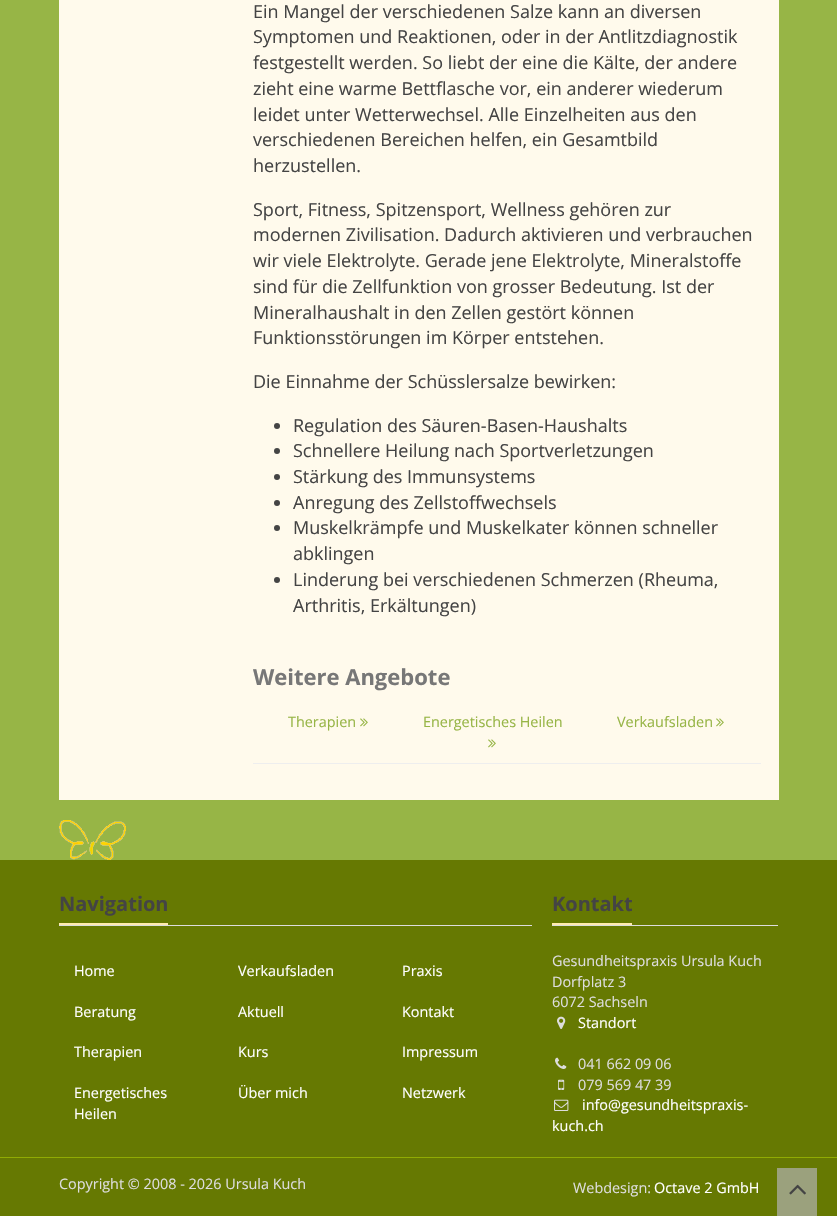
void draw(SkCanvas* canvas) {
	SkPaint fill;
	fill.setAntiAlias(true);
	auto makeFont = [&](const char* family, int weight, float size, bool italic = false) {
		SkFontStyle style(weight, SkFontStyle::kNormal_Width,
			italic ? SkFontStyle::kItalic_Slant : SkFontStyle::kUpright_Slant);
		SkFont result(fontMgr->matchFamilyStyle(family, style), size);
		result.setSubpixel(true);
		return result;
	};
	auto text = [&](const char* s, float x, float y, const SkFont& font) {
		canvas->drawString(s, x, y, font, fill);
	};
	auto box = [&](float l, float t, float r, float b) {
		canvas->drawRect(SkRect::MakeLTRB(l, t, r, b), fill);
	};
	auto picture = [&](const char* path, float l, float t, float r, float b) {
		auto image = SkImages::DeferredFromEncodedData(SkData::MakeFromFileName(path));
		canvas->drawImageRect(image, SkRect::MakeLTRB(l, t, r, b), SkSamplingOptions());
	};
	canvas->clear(0xFF97B546);
	fill.setColor(0xFFFFFAEC);
	box(59, 0, 779, 800);
	fill.setColor(0xFF444444);
	canvas->drawCircle(277, 426, 3, fill);
	canvas->drawCircle(277, 451, 3, fill);
	canvas->drawCircle(277, 477, 3, fill);
	canvas->drawCircle(277, 503, 3, fill);
	canvas->drawCircle(277, 528, 3, fill);
	canvas->drawCircle(277, 580, 3, fill);
	fill.setColor(0xFFEEEEEE);
	box(253, 763, 761, 764);
	picture("image0.png", 360, 718, 368, 727);
	picture("image0.png", 488, 739, 496, 748);
	picture("image0.png", 716, 718, 724, 727);
	picture("image1.png", 59, 820, 126, 860);
	fill.setColor(0xFF667902);
	box(0, 860, 837, 1157);
	fill.setColor(0xFFDDDDDD);
	box(59, 925, 532, 926);
	fill.setColor(0xFFFFEBAF);
	box(59, 923, 168, 925);
	fill.setColor(0xFFDDDDDD);
	box(552, 925, 778, 926);
	fill.setColor(0xFFFFEBAF);
	box(552, 923, 632, 925);
	picture("image2.png", 557, 1016, 566, 1029);
	picture("image3.png", 555, 1057, 567, 1069);
	picture("image4.png", 558, 1079, 565, 1090);
	picture("image5.png", 554, 1099, 569, 1111);
	fill.setColor(0xFF667902);
	box(0, 1158, 837, 1216);
	fill.setColor(0xFF90AB03);
	box(0, 1157, 837, 1158);
	fill.setColor(0xFF9BA17D);
	box(777, 1168, 817, 1216);
	picture("image6.png", 789, 1184, 806, 1195);
	auto font1 = makeFont("Open Sans", 400, 18);
	fill.setColor(0xFF444444);
	text("Ein Mangel der verschiedenen Salze kann an diversen", 253, 18, font1);
	text("Symptomen und Reaktionen, oder in der Antlitzdiagnostik", 253, 43, font1);
	text("festgestellt werden. So liebt der eine die Kälte, der andere", 253, 69, font1);
	text("zieht eine warme Bettflasche vor, ein anderer wiederum", 253, 95, font1);
	text("leidet unter Wetterwechsel. Alle Einzelheiten aus den", 253, 121, font1);
	text("verschiedenen Bereichen helfen, ein Gesamtbild", 253, 146, font1);
	text("herzustellen.", 253, 172, font1);
	text("Sport, Fitness, Spitzensport, Wellness gehören zur", 253, 216, font1);
	text("modernen Zivilisation. Dadurch aktivieren und verbrauchen", 253, 241, font1);
	text("wir viele Elektrolyte. Gerade jene Elektrolyte, Mineralstoffe", 253, 267, font1);
	text("sind für die Zellfunktion von grosser Bedeutung. Ist der", 253, 293, font1);
	text("Mineralhaushalt in den Zellen gestört können", 253, 319, font1);
	text("Funktionsstörungen im Körper entstehen.", 253, 344, font1);
	text("Die Einnahme der Schüsslersalze bewirken:", 253, 388, font1);
	text("Regulation des Säuren-Basen-Haushalts", 293, 432, font1);
	text("Schnellere Heilung nach Sportverletzungen", 293, 457, font1);
	text("Stärkung des Immunsystems", 293, 483, font1);
	text("Anregung des Zellstoffwechsels", 293, 509, font1);
	text("Muskelkrämpfe und Muskelkater können schneller", 293, 534, font1);
	text("abklingen", 293, 560, font1);
	text("Linderung bei verschiedenen Schmerzen (Rheuma,", 293, 586, font1);
	text("Arthritis, Erkältungen)", 293, 612, font1);
	auto font2 = makeFont("Open Sans", 700, 22);
	fill.setColor(0xFF777777);
	text("Weitere Angebote", 253, 685, font2);
	auto font3 = makeFont("Open Sans", 400, 14.4f);
	fill.setColor(0xFF97B546);
	text("Therapien", 288, 727, font3);
	text("Energetisches Heilen", 423, 727, font3);
	text("Verkaufsladen", 617, 727, font3);
	auto font4 = makeFont("Open Sans", 700, 20);
	fill.setColor(0xFF444444);
	text("Navigation", 59, 911, font4);
	fill.setColor(0xFFFFFFFF);
	text("Home", 74, 976, font3);
	text("Beratung", 74, 1017, font3);
	text("Therapien", 74, 1057, font3);
	text("Energetisches", 74, 1098, font3);
	text("Heilen", 74, 1119, font3);
	text("Verkaufsladen", 238, 976, font3);
	text("Aktuell", 238, 1017, font3);
	text("Kurs", 238, 1057, font3);
	text("Über mich", 238, 1098, font3);
	text("Praxis", 402, 976, font3);
	text("Kontakt", 402, 1017, font3);
	text("Impressum", 402, 1057, font3);
	text("Netzwerk", 402, 1098, font3);
	fill.setColor(0xFF444444);
	text("Kontakt", 552, 911, font4);
	fill.setColor(0xFFDDDDDD);
	text("Gesundheitspraxis Ursula Kuch", 552, 966, font3);
	text("Dorfplatz 3", 552, 987, font3);
	text("6072 Sachseln", 552, 1007, font3);
	fill.setColor(0xFFFFFFFF);
	text("Standort", 578, 1028, font3);
	fill.setColor(0xFFDDDDDD);
	text("041 662 09 06", 578, 1069, font3);
	text("079 569 47 39", 578, 1090, font3);
	fill.setColor(0xFFFFFFFF);
	text("info@gesundheitspraxis-", 582, 1110, font3);
	text("kuch.ch", 552, 1131, font3);
	fill.setColor(0xFFDDDDDD);
	text("Copyright © 2008 - 2026 Ursula Kuch", 59, 1189, font3);
	text("Webdesign:", 573, 1193, font3);
	fill.setColor(0xFFFFFFFF);
	text("Octave 2 GmbH", 654, 1193, font3);
}
